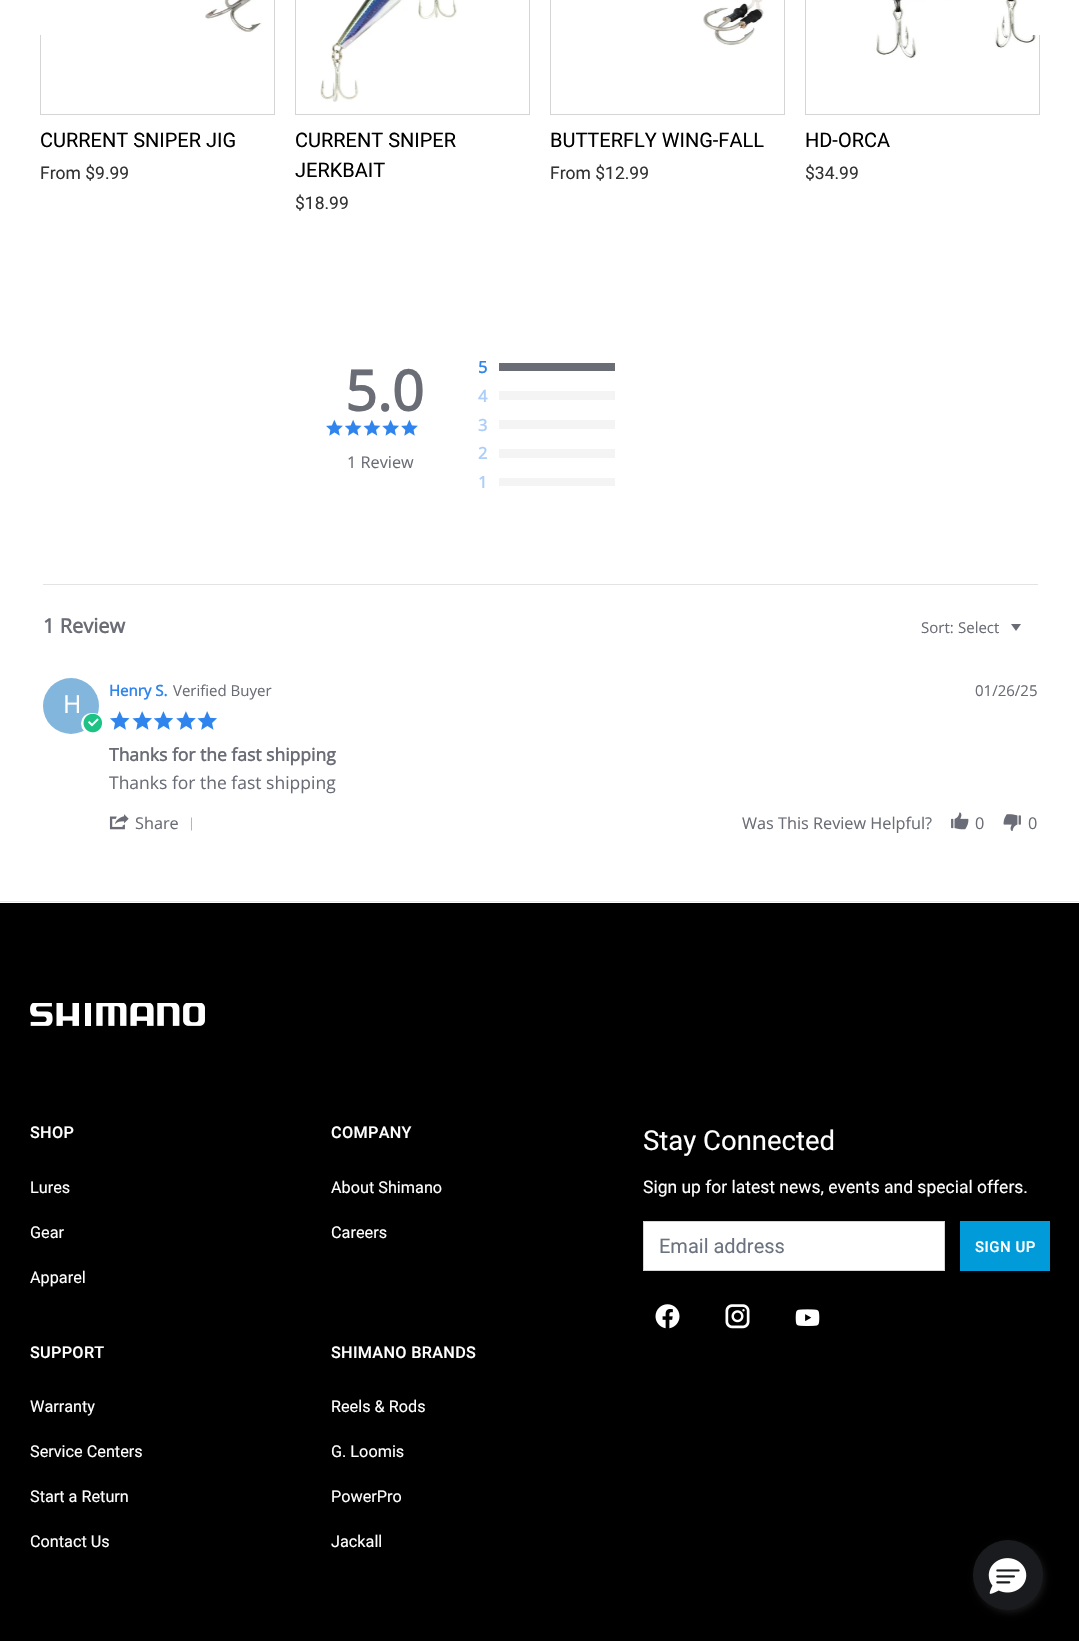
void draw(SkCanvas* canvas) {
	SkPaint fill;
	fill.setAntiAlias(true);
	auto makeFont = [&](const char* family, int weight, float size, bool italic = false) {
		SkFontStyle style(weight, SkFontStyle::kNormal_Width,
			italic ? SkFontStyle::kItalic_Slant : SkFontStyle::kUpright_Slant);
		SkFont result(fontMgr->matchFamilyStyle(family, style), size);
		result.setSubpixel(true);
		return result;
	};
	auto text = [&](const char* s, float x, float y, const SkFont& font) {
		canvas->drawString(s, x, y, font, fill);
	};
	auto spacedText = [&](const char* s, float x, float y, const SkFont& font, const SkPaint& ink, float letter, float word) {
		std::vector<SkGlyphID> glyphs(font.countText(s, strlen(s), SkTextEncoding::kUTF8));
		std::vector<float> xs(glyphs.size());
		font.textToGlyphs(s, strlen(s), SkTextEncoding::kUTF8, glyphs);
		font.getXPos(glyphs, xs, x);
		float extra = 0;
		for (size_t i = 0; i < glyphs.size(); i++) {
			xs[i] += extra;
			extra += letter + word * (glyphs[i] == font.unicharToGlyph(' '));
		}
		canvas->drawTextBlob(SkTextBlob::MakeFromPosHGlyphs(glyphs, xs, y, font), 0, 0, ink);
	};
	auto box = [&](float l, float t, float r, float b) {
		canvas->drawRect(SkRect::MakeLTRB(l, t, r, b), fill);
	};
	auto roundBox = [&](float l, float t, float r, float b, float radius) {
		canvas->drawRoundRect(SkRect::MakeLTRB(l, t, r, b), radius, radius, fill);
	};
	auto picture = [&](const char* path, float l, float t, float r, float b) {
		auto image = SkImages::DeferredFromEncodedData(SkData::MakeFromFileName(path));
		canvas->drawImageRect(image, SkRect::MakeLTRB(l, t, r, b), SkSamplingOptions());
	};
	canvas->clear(0xFFFFFFFF);
	fill.setStyle(SkPaint::kStroke_Style);
	fill.setStrokeWidth(1);
	fill.setColor(0xFFD5D5D5);
	canvas->drawRect(SkRect::MakeLTRB(40.5f, -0.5f, 274.5f, 114.5f), fill);
	fill.setStyle(SkPaint::kFill_Style);
	fill.setColor(0xFFFFFFFF);
	box(40, 0, 41, 35);
	fill.setStyle(SkPaint::kStroke_Style);
	fill.setColor(0xFFD5D5D5);
	canvas->drawRect(SkRect::MakeLTRB(805.5f, -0.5f, 1039.5f, 114.5f), fill);
	picture("image3.png", 876, 0, 1036, 58);
	fill.setStyle(SkPaint::kFill_Style);
	fill.setColor(0xFFFFFFFF);
	box(1030, 0, 1040, 35);
	picture("image0.png", 205, 0, 262, 32);
	fill.setStyle(SkPaint::kStroke_Style);
	fill.setColor(0xFFD5D5D5);
	canvas->drawRect(SkRect::MakeLTRB(295.5f, -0.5f, 529.5f, 114.5f), fill);
	picture("image1.png", 320, 0, 457, 102);
	canvas->drawRect(SkRect::MakeLTRB(550.5f, -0.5f, 784.5f, 114.5f), fill);
	picture("image2.png", 703, 0, 765, 46);
	picture("image4.png", 326, 419, 343, 436);
	picture("image5.png", 345, 419, 362, 436);
	picture("image6.png", 363, 419, 381, 436);
	picture("image7.png", 382, 419, 399, 436);
	picture("image4.png", 401, 419, 418, 436);
	fill.setStyle(SkPaint::kFill_Style);
	fill.setColor(0xFF6B6D76);
	box(499, 363, 615, 371);
	fill.setColor(0xFFF4F4F4);
	box(499, 391, 615, 400);
	box(499, 420, 615, 429);
	box(499, 449, 615, 458);
	box(499, 478, 615, 486);
	fill.setColor(0xFFE3E3E3);
	box(43, 584, 1038, 585);
	fill.setColor(0xFF6B6D76);
	canvas->drawPath(SkPathBuilder().moveTo(1016, 631).lineTo(1011, 624).lineTo(1021, 624).close().detach(), fill);
	picture("image8.png", 110, 711, 130, 730);
	picture("image9.png", 132, 711, 152, 730);
	picture("image10.png", 153, 711, 174, 730);
	picture("image11.png", 176, 711, 196, 730);
	picture("image9.png", 197, 711, 217, 730);
	fill.setColor(0xFF83B6DD);
	canvas->drawCircle(71, 706, 28, fill);
	fill.setColor(0xFFFFFFFF);
	roundBox(81, 713, 104, 734, 10.5f);
	picture("image12.png", 83, 713, 102, 733);
	picture("image13.png", 109, 814, 129, 830);
	fill.setColor(0xFF6A6C77);
	canvas->drawPath(SkPathBuilder().moveTo(191, 817.5f).lineTo(191.5f, 817.5f).lineTo(191.5f, 830.5f).lineTo(191, 830.5f).close().detach(), fill);
	picture("image14.png", 951, 812, 969, 830);
	picture("image15.png", 1003, 814, 1021, 831);
	fill.setColor(0xFF000000);
	box(0, 903, 1079, 1641);
	fill.setColor(0xFFE5E7EB);
	box(0, 901, 1079, 902);
	picture("image16.png", 30, 1003, 205, 1026);
	fill.setColor(0xFFFFFFFF);
	canvas->drawRect(SkRect::MakeLTRB(643.5f, 1221.5f, 944.5f, 1270.5f), fill);
	fill.setStyle(SkPaint::kStroke_Style);
	fill.setColor(0xFFD5D5D5);
	canvas->drawRect(SkRect::MakeLTRB(643.5f, 1221.5f, 944.5f, 1270.5f), fill);
	fill.setStyle(SkPaint::kFill_Style);
	fill.setColor(0xFF019BD9);
	box(960, 1221, 1050, 1271);
	picture("image17.png", 655, 1304, 680, 1329);
	picture("image18.png", 725, 1304, 750, 1329);
	picture("image19.png", 795, 1309, 820, 1326);
	fill.setColor(0x802D2D2D);
	fill.setMaskFilter(SkMaskFilter::MakeBlur(kNormal_SkBlurStyle, 3));
	canvas->drawRoundRect(SkRect::MakeLTRB(975, 1543, 1045, 1613), 35, 35, fill);
	fill.setMaskFilter(nullptr);
	fill.setColor(0xFF1A1B1E);
	canvas->drawCircle(1008, 1575, 35, fill);
	picture("image20.png", 988, 1558, 1027, 1594);
	auto font1 = makeFont("Roboto", 400, 20);
	fill.setColor(0xFF000000);
	text("CURRENT SNIPER JIG", 40, 147, font1);
	auto font2 = makeFont("Roboto", 400, 17.5f);
	fill.setColor(0xFF333333);
	text("From $9.99", 40, 179, font2);
	fill.setColor(0xFF000000);
	text("CURRENT SNIPER", 295, 147, font1);
	text("JERKBAIT", 295, 177, font1);
	fill.setColor(0xFF333333);
	text("$18.99", 295, 209, font2);
	fill.setColor(0xFF000000);
	text("BUTTERFLY WING-FALL", 550, 147, font1);
	fill.setColor(0xFF333333);
	text("From $12.99", 550, 179, font2);
	fill.setColor(0xFF000000);
	text("HD-ORCA", 805, 147, font1);
	fill.setColor(0xFF333333);
	text("$34.99", 805, 179, font2);
	auto font3 = makeFont("Open Sans", 700, 56);
	fill.setColor(0xFF6B6D76);
	text("5.0", 345, 411, font3);
	auto font4 = makeFont("Open Sans", 400, 16.25f);
	text("1 Review", 347, 468, font4);
	auto font5 = makeFont("Open Sans", 700, 16.25f);
	fill.setColor(0xFF2F84ED);
	text("5", 478, 373, font5);
	fill.setColor(0xFFACCEF8);
	text("4", 478, 402, font5);
	text("3", 478, 431, font5);
	text("2", 478, 459, font5);
	text("1", 478, 488, font5);
	auto font6 = makeFont("Open Sans", 700, 20);
	fill.setColor(0xFF6B6D76);
	text("1 Review", 43, 633, font6);
	auto font7 = makeFont("Open Sans", 400, 15);
	text("Sort:", 921, 633, font7);
	text("Select", 958, 633, font7);
	auto font8 = makeFont("Open Sans", 700, 15);
	fill.setColor(0xFF2F84ED);
	text("Henry S.", 109, 696, font8);
	fill.setColor(0xFF6B6D76);
	text("Verified Buyer", 173, 696, font7);
	text("01/26/25", 975, 696, font7);
	auto font9 = makeFont("Open Sans", 400, 25);
	fill.setColor(0xFFFFFFFF);
	text("H", 63, 713, font9);
	auto font10 = makeFont("Open Sans", 700, 17.5f);
	fill.setColor(0xFF6B6D76);
	text("Thanks for the fast shipping", 109, 761, font10);
	auto font11 = makeFont("Open Sans", 400, 17.5f);
	text("Thanks for the fast shipping", 109, 789, font11);
	text("Share", 135, 829, font4);
	text("Was This Review Helpful?", 742, 829, font4);
	text("0", 975, 829, font4);
	text("0", 1028, 829, font4);
	auto font12 = makeFont("Roboto", 500, 16.25f);
	fill.setColor(0xFFFFFFFF);
	spacedText("SHOP", 30, 1138, font12, fill, 0.3f, 0);
	auto font13 = makeFont("Roboto", 400, 16.25f);
	text("Lures", 30, 1193, font13);
	text("Gear", 30, 1238, font13);
	text("Apparel", 30, 1283, font13);
	spacedText("COMPANY", 331, 1138, font12, fill, 0.3f, 0);
	text("About Shimano", 331, 1193, font13);
	text("Careers", 331, 1238, font13);
	spacedText("SUPPORT", 30, 1358, font12, fill, 0.3f, 0);
	text("Warranty", 30, 1412, font13);
	text("Service Centers", 30, 1457, font13);
	text("Start a Return", 30, 1502, font13);
	text("Contact Us", 30, 1547, font13);
	spacedText("SHIMANO BRANDS", 331, 1358, font12, fill, 0.3f, 0);
	text("Reels & Rods", 331, 1412, font13);
	text("G. Loomis", 331, 1457, font13);
	text("PowerPro", 331, 1502, font13);
	text("Jackall", 331, 1547, font13);
	auto font14 = makeFont("Roboto", 400, 27.5f);
	text("Stay Connected", 643, 1150, font14);
	text("Sign up for latest news, events and special offers.", 643, 1193, font2);
	fill.setColor(0xFF6B7280);
	text("Email address", 659, 1253, font1);
	auto font15 = makeFont("Roboto", 500, 15);
	fill.setColor(0xFFFFFFFF);
	spacedText("SIGN UP", 975, 1252, font15, fill, 0.5f, 0);
}
